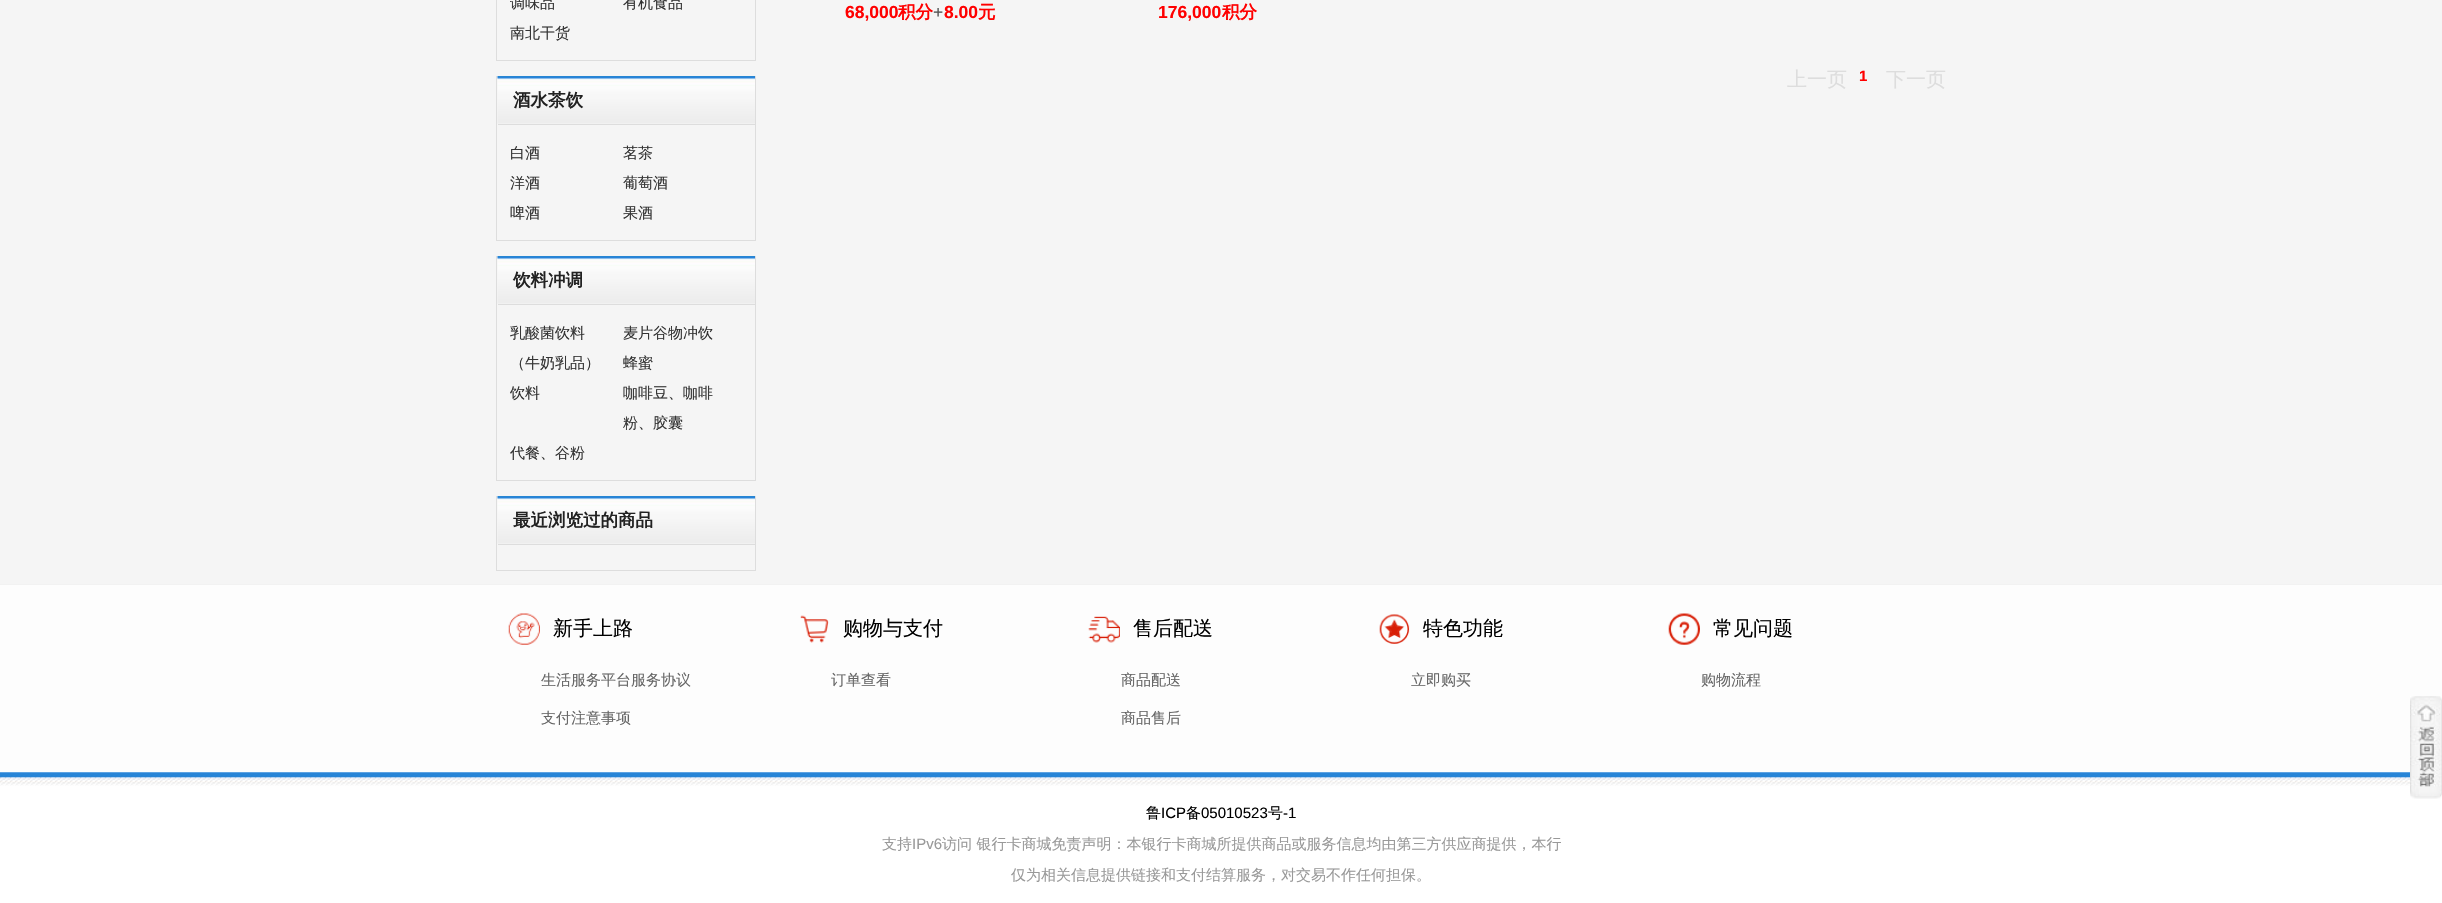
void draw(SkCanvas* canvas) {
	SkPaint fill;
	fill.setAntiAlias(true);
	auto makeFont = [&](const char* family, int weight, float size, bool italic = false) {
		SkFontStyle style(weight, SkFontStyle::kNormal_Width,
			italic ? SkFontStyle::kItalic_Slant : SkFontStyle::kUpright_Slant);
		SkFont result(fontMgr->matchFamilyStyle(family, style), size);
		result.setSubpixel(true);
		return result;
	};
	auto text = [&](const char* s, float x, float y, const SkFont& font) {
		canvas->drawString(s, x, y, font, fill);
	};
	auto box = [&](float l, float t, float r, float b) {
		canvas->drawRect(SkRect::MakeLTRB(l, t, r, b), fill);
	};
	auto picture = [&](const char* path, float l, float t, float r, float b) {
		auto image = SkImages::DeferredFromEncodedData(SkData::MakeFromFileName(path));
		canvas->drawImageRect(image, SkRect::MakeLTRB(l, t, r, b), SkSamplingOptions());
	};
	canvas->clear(0xFFF5F5F5);
	fill.setColor(0xFFDDDDDD);
	box(755, 0, 756, 61);
	box(496, 60, 756, 61);
	box(496, 0, 497, 61);
	box(755, 76, 756, 241);
	box(496, 240, 756, 241);
	box(496, 76, 497, 241);
	picture("image0.png", 497, 76, 755, 124);
	box(498, 124, 755, 125);
	box(755, 256, 756, 481);
	box(496, 480, 756, 481);
	box(496, 256, 497, 481);
	picture("image1.png", 497, 256, 755, 304);
	box(498, 304, 755, 305);
	box(755, 496, 756, 571);
	box(496, 570, 756, 571);
	box(496, 496, 497, 571);
	picture("image2.png", 497, 496, 755, 544);
	box(498, 544, 755, 545);
	fill.setColor(0xFFFDFDFD);
	box(0, 585, 2442, 773);
	fill.setColor(0xFFF2F2F2);
	box(0, 584, 2442, 585);
	picture("image3.png", 508, 613, 540, 645);
	picture("image4.png", 800, 615, 829, 643);
	picture("image5.png", 1088, 616, 1120, 643);
	picture("image6.png", 1379, 614, 1410, 644);
	picture("image7.png", 1668, 613, 1700, 645);
	fill.setColor(0xFFFFFFFF);
	box(0, 786, 2442, 903);
	picture("image8.png", 0, 772, 2410, 786);
	picture("image9.png", 2410, 696, 2442, 799);
	auto font1 = makeFont("WenQuanYi Zen Hei", 500, 15);
	fill.setColor(0xFF333333);
	text("调味品", 510, 8, font1);
	text("有机食品", 623, 8, font1);
	text("南北干货", 510, 38, font1);
	auto font2 = makeFont("WenQuanYi Zen Hei", 700, 17.5f);
	fill.setColor(0xFF222222);
	text("酒水茶饮", 513, 106, font2);
	fill.setColor(0xFF333333);
	text("白酒", 510, 158, font1);
	text("茗茶", 623, 158, font1);
	text("洋酒", 510, 188, font1);
	text("葡萄酒", 623, 188, font1);
	text("啤酒", 510, 218, font1);
	text("果酒", 623, 218, font1);
	fill.setColor(0xFF222222);
	text("饮料冲调", 513, 286, font2);
	fill.setColor(0xFF333333);
	text("乳酸菌饮料", 510, 338, font1);
	text("（牛奶乳品）", 510, 368, font1);
	text("麦片谷物冲饮", 623, 338, font1);
	text("蜂蜜", 623, 368, font1);
	text("饮料", 510, 398, font1);
	text("咖啡豆、咖啡", 623, 398, font1);
	text("粉、胶囊", 623, 428, font1);
	text("代餐、谷粉", 510, 458, font1);
	fill.setColor(0xFF222222);
	text("最近浏览过的商品", 513, 526, font2);
	auto font3 = makeFont("Liberation Sans", 700, 17.5f);
	fill.setColor(0xFFFF0000);
	text("68,000", 845, 18, font3);
	text("积分", 898, 18, font2);
	auto font4 = makeFont("Liberation Sans", 400, 17.5f);
	fill.setColor(0xFF555555);
	text("+", 933, 18, font4);
	fill.setColor(0xFFFF0000);
	text("8.00", 944, 18, font3);
	text("元", 978, 18, font2);
	text("176,000", 1158, 18, font3);
	text("积分", 1222, 18, font2);
	auto font5 = makeFont("WenQuanYi Zen Hei", 500, 20);
	fill.setColor(0xFFDDDDDD);
	text("上一页", 1787, 86, font5);
	auto font6 = makeFont("Liberation Sans", 700, 15);
	fill.setColor(0xFFFF0000);
	text("1", 1859, 81, font6);
	fill.setColor(0xFFDDDDDD);
	text("下一页", 1886, 86, font5);
	fill.setColor(0xFF000000);
	text("新手上路", 553, 635, font5);
	fill.setColor(0xFF666666);
	text("生活服务平台服务协议", 541, 685, font1);
	text("支付注意事项", 541, 723, font1);
	fill.setColor(0xFF000000);
	text("购物与支付", 843, 635, font5);
	fill.setColor(0xFF666666);
	text("订单查看", 831, 685, font1);
	fill.setColor(0xFF000000);
	text("售后配送", 1133, 635, font5);
	fill.setColor(0xFF666666);
	text("商品配送", 1121, 685, font1);
	text("商品售后", 1121, 723, font1);
	fill.setColor(0xFF000000);
	text("特色功能", 1423, 635, font5);
	fill.setColor(0xFF666666);
	text("立即购买", 1411, 685, font1);
	fill.setColor(0xFF000000);
	text("常见问题", 1713, 635, font5);
	fill.setColor(0xFF666666);
	text("购物流程", 1701, 685, font1);
	fill.setColor(0xFF000000);
	text("鲁", 1146, 818, font1);
	auto font7 = makeFont("Liberation Sans", 400, 15);
	text("ICP", 1161, 818, font7);
	text("备", 1186, 818, font1);
	text("05010523", 1201, 818, font7);
	text("号", 1268, 818, font1);
	text("-1", 1283, 818, font7);
	fill.setColor(0xFF999999);
	text("支持", 882, 849, font1);
	text("IPv6", 912, 849, font7);
	text("访问 银行卡商城免责声明：本银行卡商城所提供商品或服务信息均由第三方供应商提供，本行", 942, 849, font1);
	text("仅为相关信息提供链接和支付结算服务，对交易不作任何担保。", 1011, 880, font1);
}
